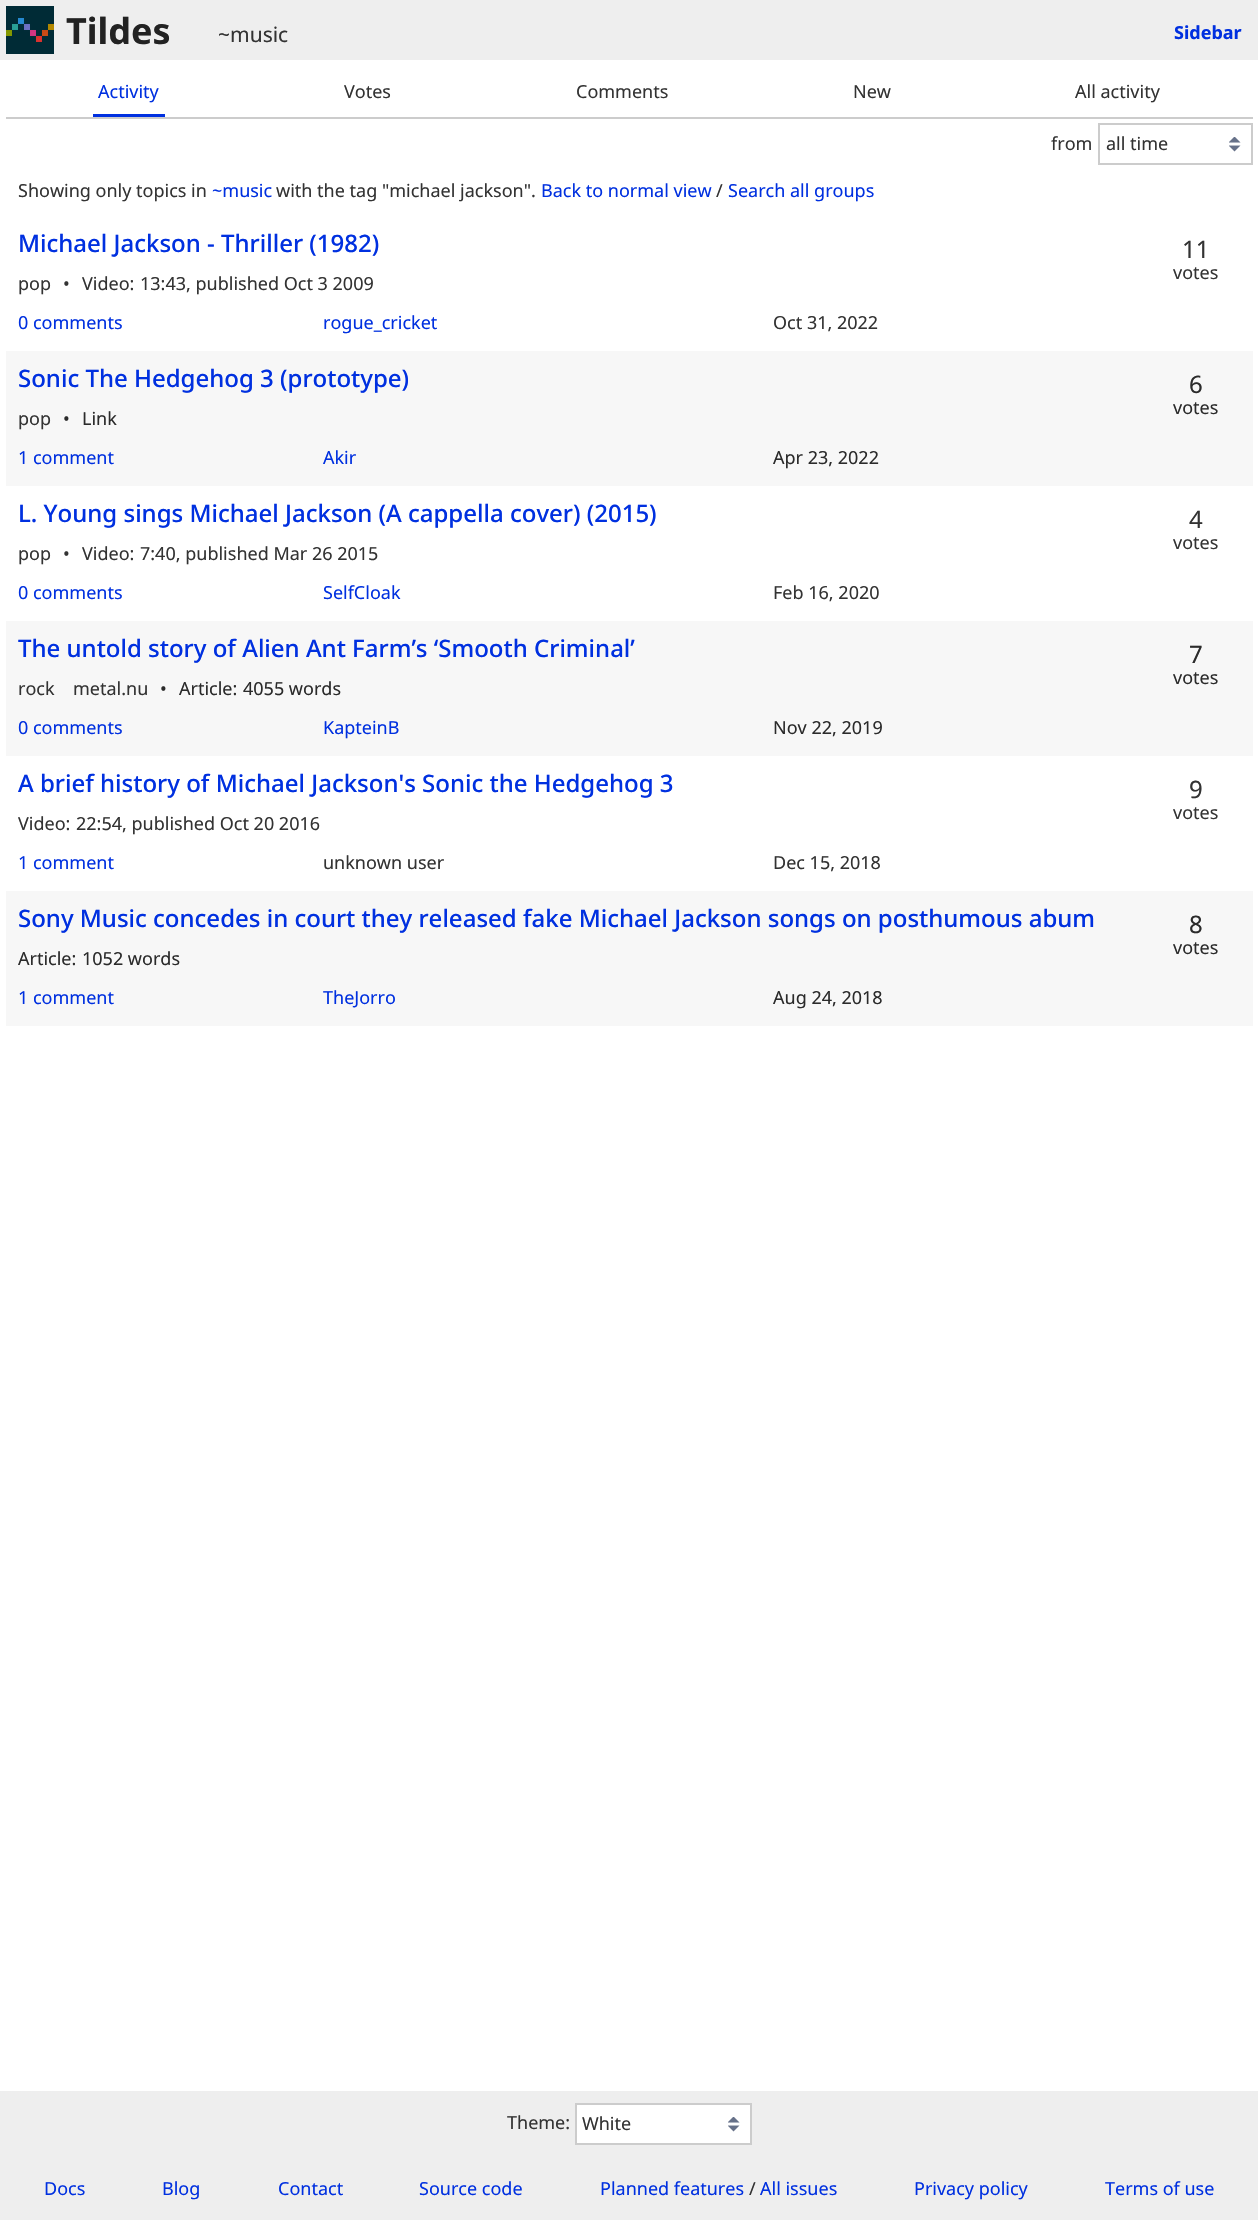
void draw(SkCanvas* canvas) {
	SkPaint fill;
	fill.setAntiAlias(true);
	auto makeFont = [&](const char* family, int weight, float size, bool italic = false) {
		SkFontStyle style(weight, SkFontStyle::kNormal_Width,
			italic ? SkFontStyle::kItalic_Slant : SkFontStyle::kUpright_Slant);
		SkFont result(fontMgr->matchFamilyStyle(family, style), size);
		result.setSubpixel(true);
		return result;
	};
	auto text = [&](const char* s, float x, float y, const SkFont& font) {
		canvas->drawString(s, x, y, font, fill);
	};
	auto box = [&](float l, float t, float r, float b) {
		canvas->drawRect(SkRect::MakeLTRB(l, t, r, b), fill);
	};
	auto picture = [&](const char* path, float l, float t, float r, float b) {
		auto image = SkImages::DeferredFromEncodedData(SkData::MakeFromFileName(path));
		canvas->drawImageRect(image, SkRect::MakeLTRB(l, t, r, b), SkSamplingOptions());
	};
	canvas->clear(0xFFEEEEEE);
	picture("image0.png", 6, 6, 54, 54);
	fill.setColor(0xFFFFFFFF);
	box(0, 60, 1258, 2091);
	fill.setColor(0xFFCCCCCC);
	box(6, 117, 1253, 119);
	fill.setColor(0xFF0030E0);
	box(93, 114, 165, 117);
	picture("image1.png", 1229, 137, 1241, 152);
	fill.setStyle(SkPaint::kStroke_Style);
	fill.setStrokeWidth(2);
	fill.setColor(0xFFCCCCCC);
	canvas->drawRect(SkRect::MakeLTRB(1099, 124, 1252, 164), fill);
	fill.setStyle(SkPaint::kFill_Style);
	fill.setColor(0xFFF7F7F7);
	box(6, 351, 1253, 486);
	box(6, 621, 1253, 756);
	box(6, 891, 1253, 1026);
	fill.setColor(0xFFFFFFFF);
	box(577, 2105, 750, 2143);
	picture("image1.png", 728, 2117, 740, 2132);
	fill.setStyle(SkPaint::kStroke_Style);
	fill.setColor(0xFFCCCCCC);
	canvas->drawRect(SkRect::MakeLTRB(576, 2104, 751, 2144), fill);
	auto font1 = makeFont("Noto Sans", 700, 36);
	fill.setStyle(SkPaint::kFill_Style);
	fill.setColor(0xFF222222);
	text("Tildes", 66, 44, font1);
	auto font2 = makeFont("Noto Sans", 400, 21);
	fill.setColor(0xFF333333);
	text("~music", 218, 42, font2);
	auto font3 = makeFont("Noto Sans", 700, 18);
	fill.setColor(0xFF0030E0);
	text("Sidebar", 1174, 39, font3);
	auto font4 = makeFont("Noto Sans", 400, 18);
	text("Activity", 98, 98, font4);
	fill.setColor(0xFF333333);
	text("Votes", 344, 98, font4);
	text("Comments", 576, 98, font4);
	text("New", 853, 98, font4);
	text("All activity", 1075, 98, font4);
	text("from", 1051, 150, font4);
	text("all time", 1106, 150, font4);
	text("Showing only topics in", 18, 197, font4);
	fill.setColor(0xFF0030E0);
	text("~music", 212, 197, font4);
	fill.setColor(0xFF333333);
	text("with the tag \"michael jackson\".", 276, 197, font4);
	fill.setColor(0xFF0030E0);
	text("Back to normal view", 541, 197, font4);
	fill.setColor(0xFF333333);
	text("/", 716, 197, font4);
	fill.setColor(0xFF0030E0);
	text("Search all groups", 728, 197, font4);
	auto font5 = makeFont("Noto Sans", 500, 24);
	text("Michael Jackson - Thriller (1982)", 18, 252, font5);
	auto font6 = makeFont("Noto Sans", 400, 24);
	fill.setColor(0xFF333333);
	text("11", 1182, 258, font6);
	text("votes", 1173, 279, font4);
	text("pop", 18, 290, font4);
	text("•", 63, 290, font4);
	text("Video:", 82, 290, font4);
	text("13:43, published Oct 3 2009", 140, 290, font4);
	fill.setColor(0xFF0030E0);
	text("0 comments", 18, 329, font4);
	text("rogue_cricket", 323, 329, font4);
	fill.setColor(0xFF333333);
	text("Oct 31, 2022", 773, 329, font4);
	fill.setColor(0xFF0030E0);
	text("Sonic The Hedgehog 3 (prototype)", 18, 387, font5);
	fill.setColor(0xFF2B2B2B);
	text("6", 1189, 393, font6);
	text("votes", 1173, 414, font4);
	fill.setColor(0xFF333333);
	text("pop", 18, 425, font4);
	fill.setColor(0xFF2B2B2B);
	text("•", 63, 425, font4);
	text("Link", 82, 425, font4);
	fill.setColor(0xFF0030E0);
	text("1 comment", 18, 464, font4);
	text("Akir", 323, 464, font4);
	fill.setColor(0xFF2B2B2B);
	text("Apr 23, 2022", 773, 464, font4);
	fill.setColor(0xFF0030E0);
	text("L. Young sings Michael Jackson (A cappella cover) (2015)", 18, 522, font5);
	fill.setColor(0xFF333333);
	text("4", 1189, 528, font6);
	text("votes", 1173, 549, font4);
	text("pop", 18, 560, font4);
	text("•", 63, 560, font4);
	text("Video:", 82, 560, font4);
	text("7:40, published Mar 26 2015", 140, 560, font4);
	fill.setColor(0xFF0030E0);
	text("0 comments", 18, 599, font4);
	text("SelfCloak", 323, 599, font4);
	fill.setColor(0xFF333333);
	text("Feb 16, 2020", 773, 599, font4);
	fill.setColor(0xFF0030E0);
	text("The untold story of Alien Ant Farm’s ‘Smooth Criminal’", 18, 657, font5);
	fill.setColor(0xFF2B2B2B);
	text("7", 1189, 663, font6);
	text("votes", 1173, 684, font4);
	fill.setColor(0xFF333333);
	text("rock", 18, 695, font4);
	text("metal.nu", 73, 695, font4);
	fill.setColor(0xFF2B2B2B);
	text("•", 160, 695, font4);
	text("Article:", 179, 695, font4);
	text("4055 words", 243, 695, font4);
	fill.setColor(0xFF0030E0);
	text("0 comments", 18, 734, font4);
	text("KapteinB", 323, 734, font4);
	fill.setColor(0xFF2B2B2B);
	text("Nov 22, 2019", 773, 734, font4);
	fill.setColor(0xFF0030E0);
	text("A brief history of Michael Jackson's Sonic the Hedgehog 3", 18, 792, font5);
	fill.setColor(0xFF333333);
	text("9", 1189, 798, font6);
	text("votes", 1173, 819, font4);
	text("Video:", 18, 830, font4);
	text("22:54, published Oct 20 2016", 76, 830, font4);
	fill.setColor(0xFF0030E0);
	text("1 comment", 18, 869, font4);
	fill.setColor(0xFF333333);
	text("unknown user", 323, 869, font4);
	text("Dec 15, 2018", 773, 869, font4);
	fill.setColor(0xFF0030E0);
	text("Sony Music concedes in court they released fake Michael Jackson songs on posthumous abum", 18, 927, font5);
	fill.setColor(0xFF2B2B2B);
	text("8", 1189, 933, font6);
	text("votes", 1173, 954, font4);
	text("Article:", 18, 965, font4);
	text("1052 words", 82, 965, font4);
	fill.setColor(0xFF0030E0);
	text("1 comment", 18, 1004, font4);
	text("TheJorro", 323, 1004, font4);
	fill.setColor(0xFF2B2B2B);
	text("Aug 24, 2018", 773, 1004, font4);
	fill.setColor(0xFF333333);
	text("Theme:", 507, 2129, font4);
	text("White", 582, 2130, font4);
	fill.setColor(0xFF0030E0);
	text("Docs", 44, 2195, font4);
	text("Blog", 162, 2195, font4);
	text("Contact", 278, 2195, font4);
	text("Source code", 419, 2195, font4);
	text("Planned features", 600, 2195, font4);
	fill.setColor(0xFF333333);
	text("/", 749, 2195, font4);
	fill.setColor(0xFF0030E0);
	text("All issues", 760, 2195, font4);
	text("Privacy policy", 914, 2195, font4);
	text("Terms of use", 1105, 2195, font4);
}
